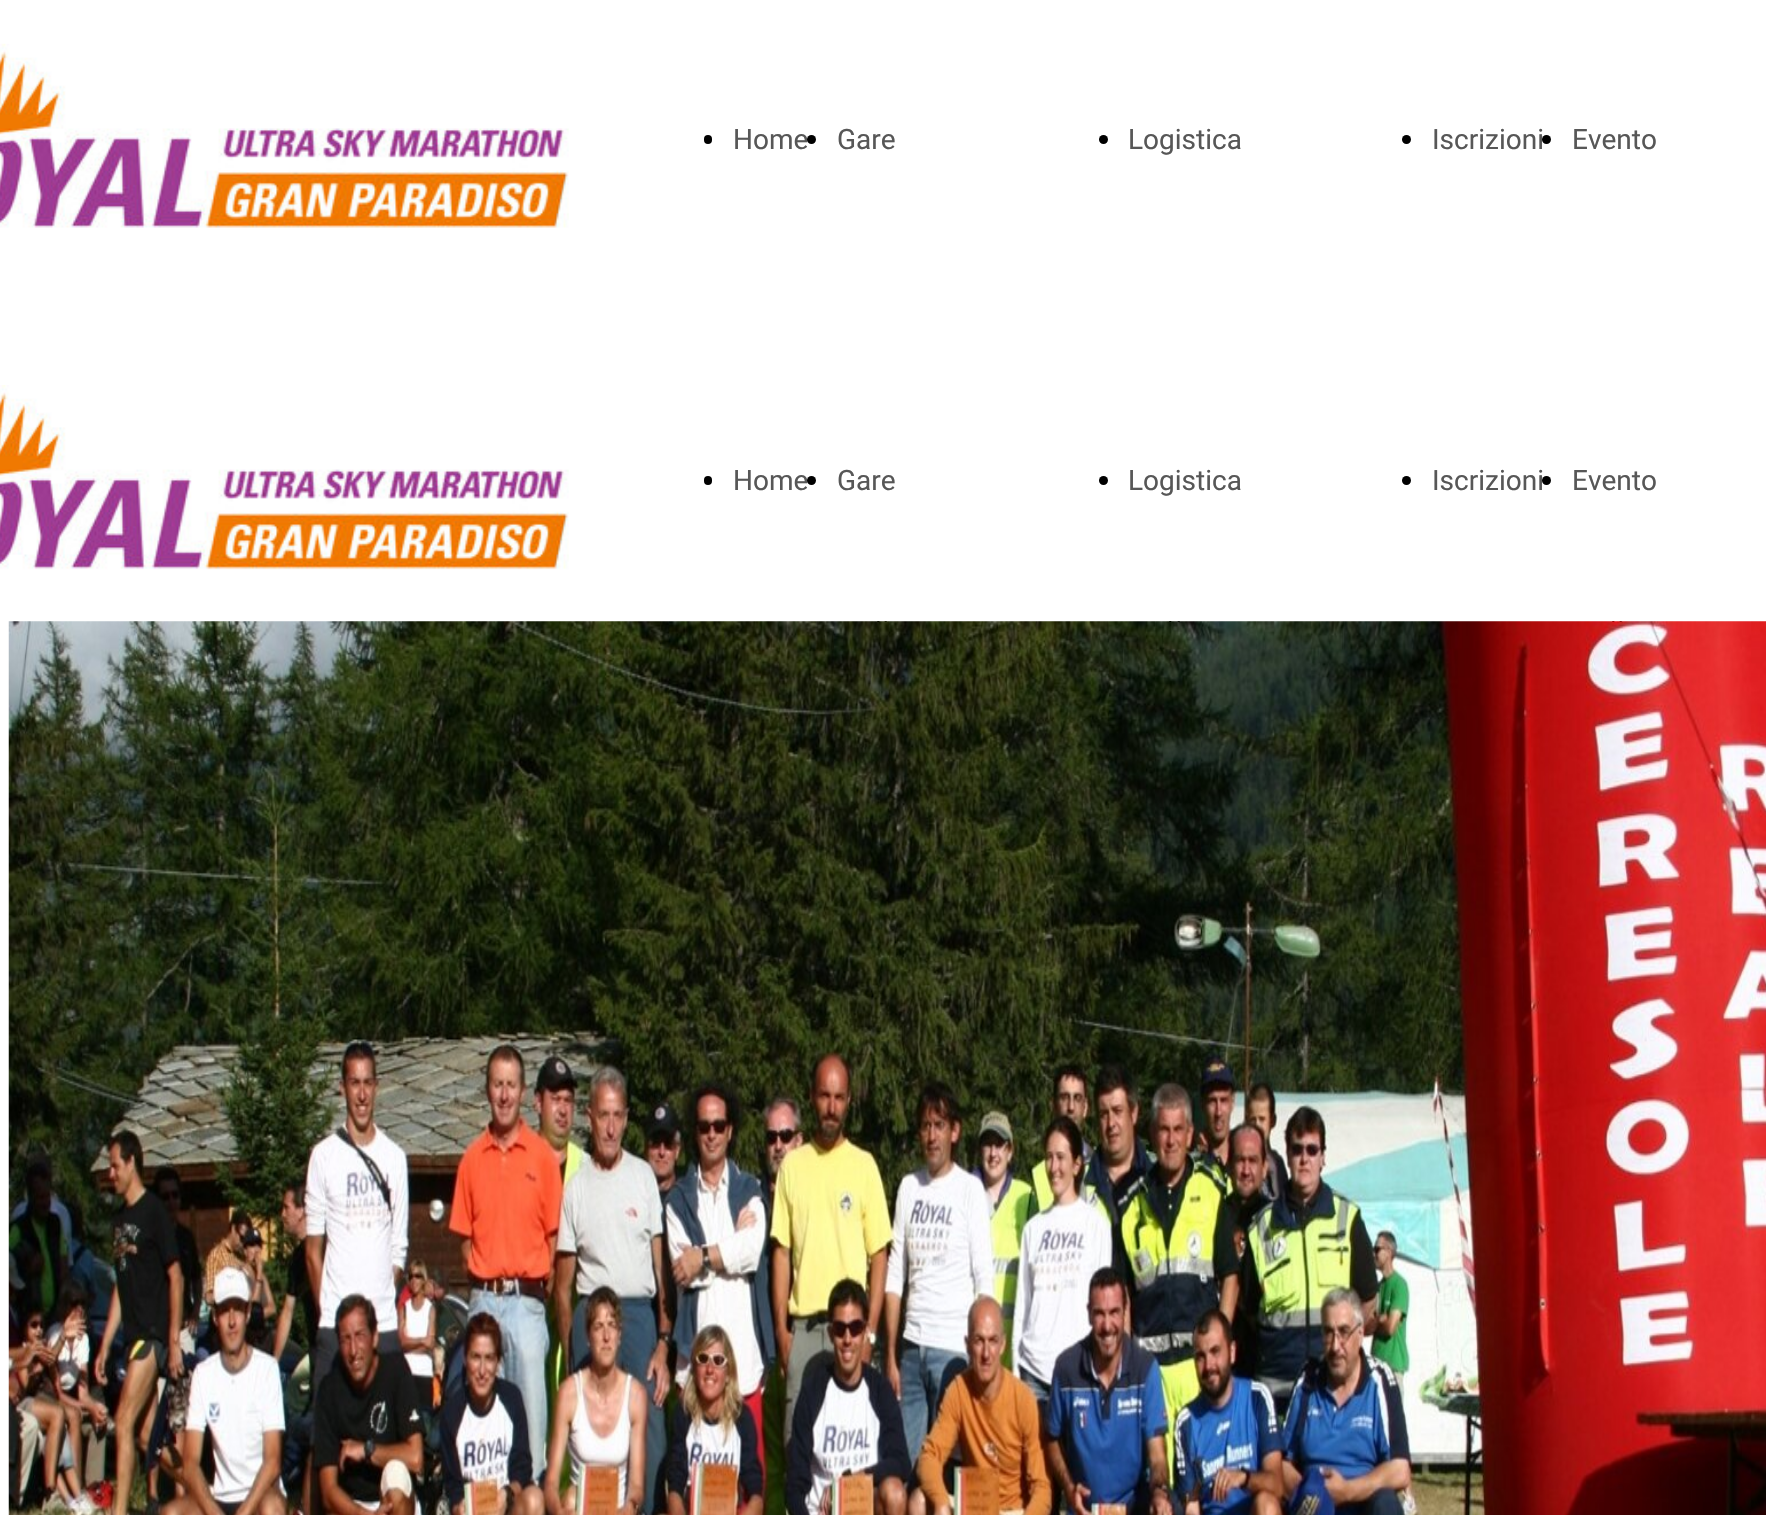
void draw(SkCanvas* canvas) {
	SkPaint fill;
	fill.setAntiAlias(true);
	auto makeFont = [&](const char* family, int weight, float size, bool italic = false) {
		SkFontStyle style(weight, SkFontStyle::kNormal_Width,
			italic ? SkFontStyle::kItalic_Slant : SkFontStyle::kUpright_Slant);
		SkFont result(fontMgr->matchFamilyStyle(family, style), size);
		result.setSubpixel(true);
		return result;
	};
	auto text = [&](const char* s, float x, float y, const SkFont& font) {
		canvas->drawString(s, x, y, font, fill);
	};
	auto box = [&](float l, float t, float r, float b) {
		canvas->drawRect(SkRect::MakeLTRB(l, t, r, b), fill);
	};
	auto roundBox = [&](float l, float t, float r, float b, float radius) {
		canvas->drawRoundRect(SkRect::MakeLTRB(l, t, r, b), radius, radius, fill);
	};
	auto picture = [&](const char* path, float l, float t, float r, float b) {
		auto image = SkImages::DeferredFromEncodedData(SkData::MakeFromFileName(path));
		canvas->drawImageRect(image, SkRect::MakeLTRB(l, t, r, b), SkSamplingOptions());
	};
	canvas->clear(0xFFFFFFFF);
	picture("image0.png", 0, 43, 569, 228);
	fill.setColor(0xFF000000);
	roundBox(704, 135, 712, 144, 4);
	fill.setStyle(SkPaint::kStroke_Style);
	fill.setStrokeWidth(2);
	canvas->drawCircle(882, 623, 4, fill);
	fill.setStyle(SkPaint::kFill_Style);
	canvas->drawCircle(1103.5f, 139.5f, 4.5f, fill);
	fill.setStyle(SkPaint::kStroke_Style);
	canvas->drawRoundRect(SkRect::MakeLTRB(1170, 619, 1179, 627), 4, 4, fill);
	fill.setStyle(SkPaint::kFill_Style);
	canvas->drawCircle(1406.5f, 139.5f, 4.5f, fill);
	fill.setStyle(SkPaint::kStroke_Style);
	canvas->drawCircle(1617, 623, 4, fill);
	picture("image1.png", 0, 385, 569, 570);
	fill.setStyle(SkPaint::kFill_Style);
	roundBox(704, 476, 712, 485, 4);
	canvas->drawCircle(1103.5f, 480.5f, 4.5f, fill);
	canvas->drawCircle(1406.5f, 480.5f, 4.5f, fill);
	fill.setColor(0xFFFFFFFF);
	box(877, 618, 1622, 621);
	picture("image2.png", 8, 621, 1766, 1515);
	auto font1 = makeFont("Roboto", 400, 28);
	fill.setColor(0xFF575757);
	text("Home", 733, 149, font1);
	fill.setColor(0xFF000000);
	canvas->drawCircle(811.5f, 139.5f, 4.5f, fill);
	fill.setColor(0xFF575757);
	text("Gare", 837, 149, font1);
	text("Logistica", 1128, 149, font1);
	text("Iscrizioni", 1432, 149, font1);
	fill.setColor(0xFF000000);
	canvas->drawCircle(1546.5f, 139.5f, 4.5f, fill);
	fill.setColor(0xFF575757);
	text("Evento", 1572, 149, font1);
	text("Home", 733, 490, font1);
	fill.setColor(0xFF000000);
	canvas->drawCircle(811.5f, 480.5f, 4.5f, fill);
	fill.setColor(0xFF575757);
	text("Gare", 837, 490, font1);
	text("Logistica", 1128, 490, font1);
	text("Iscrizioni", 1432, 490, font1);
	fill.setColor(0xFF000000);
	canvas->drawCircle(1546.5f, 480.5f, 4.5f, fill);
	fill.setColor(0xFF575757);
	text("Evento", 1572, 490, font1);
}
